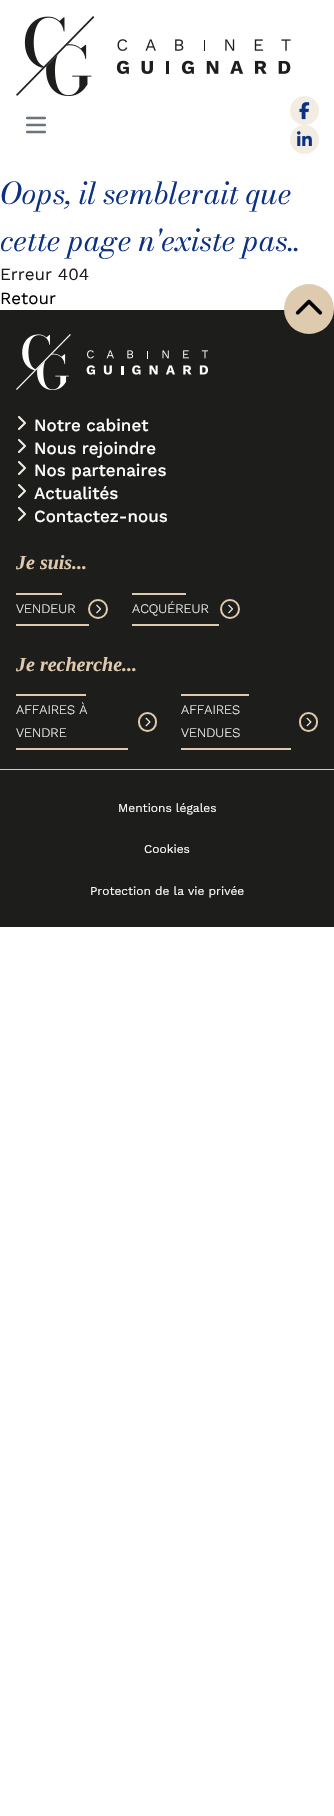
void draw(SkCanvas* canvas) {
	SkPaint fill;
	fill.setAntiAlias(true);
	auto makeFont = [&](const char* family, int weight, float size, bool italic = false) {
		SkFontStyle style(weight, SkFontStyle::kNormal_Width,
			italic ? SkFontStyle::kItalic_Slant : SkFontStyle::kUpright_Slant);
		SkFont result(fontMgr->matchFamilyStyle(family, style), size);
		result.setSubpixel(true);
		return result;
	};
	auto text = [&](const char* s, float x, float y, const SkFont& font) {
		canvas->drawString(s, x, y, font, fill);
	};
	auto spacedText = [&](const char* s, float x, float y, const SkFont& font, const SkPaint& ink, float letter, float word) {
		std::vector<SkGlyphID> glyphs(font.countText(s, strlen(s), SkTextEncoding::kUTF8));
		std::vector<float> xs(glyphs.size());
		font.textToGlyphs(s, strlen(s), SkTextEncoding::kUTF8, glyphs);
		font.getXPos(glyphs, xs, x);
		float extra = 0;
		for (size_t i = 0; i < glyphs.size(); i++) {
			xs[i] += extra;
			extra += letter + word * (glyphs[i] == font.unicharToGlyph(' '));
		}
		canvas->drawTextBlob(SkTextBlob::MakeFromPosHGlyphs(glyphs, xs, y, font), 0, 0, ink);
	};
	auto box = [&](float l, float t, float r, float b) {
		canvas->drawRect(SkRect::MakeLTRB(l, t, r, b), fill);
	};
	auto picture = [&](const char* path, float l, float t, float r, float b) {
		auto image = SkImages::DeferredFromEncodedData(SkData::MakeFromFileName(path));
		canvas->drawImageRect(image, SkRect::MakeLTRB(l, t, r, b), SkSamplingOptions());
	};
	canvas->clear(0xFFFFFFFF);
	picture("image0.png", 16, 16, 291, 96);
	canvas->save();
	canvas->clipRect(SkRect::MakeLTRB(26, 115, 46, 135));
	fill.setStyle(SkPaint::kStroke_Style);
	fill.setStrokeWidth(2.4f);
	fill.setStrokeCap(SkPaint::kRound_Cap);
	fill.setStrokeJoin(SkPaint::kRound_Join);
	fill.setColor(0xFF6B7280);
	canvas->drawPath(SkPathBuilder().moveTo(27, 118).lineTo(45, 118).moveTo(27, 125).lineTo(45, 125).moveTo(27, 132).lineTo(45, 132).detach(), fill);
	canvas->restore();
	fill.setStyle(SkPaint::kFill_Style);
	fill.setColor(0xFFF3ECE3);
	canvas->drawCircle(304.5f, 110.5f, 14.5f, fill);
	picture("image1.png", 299, 102, 310, 120);
	canvas->drawCircle(304.5f, 139.5f, 14.5f, fill);
	picture("image2.png", 297, 131, 312, 146);
	fill.setColor(0xFF1D1D1B);
	box(0, 310, 334, 927);
	fill.setColor(0xFFDDCAAF);
	canvas->drawCircle(309, 309, 25, fill);
	picture("image3.png", 295, 299, 323, 315);
	picture("image4.png", 16, 334, 208, 390);
	picture("image5.png", 18, 416, 26, 430);
	picture("image5.png", 18, 439, 26, 453);
	picture("image5.png", 18, 461, 26, 475);
	picture("image5.png", 18, 484, 26, 498);
	picture("image6.png", 18, 507, 26, 521);
	box(16, 593, 62, 595);
	fill.setStyle(SkPaint::kStroke_Style);
	fill.setStrokeWidth(2);
	fill.setStrokeCap(SkPaint::kButt_Cap);
	fill.setStrokeJoin(SkPaint::kMiter_Join);
	canvas->drawCircle(98, 609, 9, fill);
	picture("image7.png", 96, 604, 101, 614);
	fill.setStyle(SkPaint::kFill_Style);
	box(16, 624, 89, 626);
	box(132, 593, 186, 595);
	fill.setStyle(SkPaint::kStroke_Style);
	canvas->drawCircle(230, 609, 9, fill);
	picture("image7.png", 228, 604, 233, 614);
	fill.setStyle(SkPaint::kFill_Style);
	box(132, 624, 219, 626);
	box(16, 694, 86, 696);
	fill.setStyle(SkPaint::kStroke_Style);
	canvas->drawRoundRect(SkRect::MakeLTRB(139, 713, 156, 731), 8.5f, 8.5f, fill);
	picture("image8.png", 145, 717, 151, 727);
	fill.setStyle(SkPaint::kFill_Style);
	box(16, 748, 128, 750);
	box(181, 694, 249, 696);
	fill.setStyle(SkPaint::kStroke_Style);
	canvas->drawRoundRect(SkRect::MakeLTRB(300, 713, 317, 731), 8.5f, 8.5f, fill);
	picture("image9.png", 306, 717, 312, 727);
	fill.setStyle(SkPaint::kFill_Style);
	box(181, 748, 291, 750);
	box(0, 769, 334, 770);
	auto font1 = makeFont("Bodoni Moda", 400, 30, true);
	fill.setColor(0xFF0C3183);
	spacedText("Oops, il semblerait que", 0, 204, font1, fill, 0, -0.5f);
	spacedText("cette page n'existe pas..", 0, 251, font1, fill, 0, -1);
	auto font2 = makeFont("Work Sans", 400, 17);
	fill.setColor(0xFF1D1D1B);
	text("Erreur 404", 0, 280, font2);
	fill.setColor(0xFF000000);
	text("Retour", 0, 304, font2);
	auto font3 = makeFont("Work Sans", 500, 17);
	fill.setColor(0xFFFFFFFF);
	text("Notre cabinet", 34, 431, font3);
	text("Nous rejoindre", 34, 454, font3);
	text("Nos partenaires", 34, 476, font3);
	text("Actualités", 34, 499, font3);
	text("Contactez-nous", 34, 522, font3);
	auto font4 = makeFont("Liberation Serif", 700, 20, true);
	fill.setColor(0xFFDDCAAF);
	text("Je suis...", 16, 569, font4);
	auto font5 = makeFont("Work Sans", 300, 13);
	fill.setColor(0xFFFFFFFF);
	text("VENDEUR", 16, 613, font5);
	text("ACQUÉREUR", 132, 613, font5);
	fill.setColor(0xFFDDCAAF);
	text("Je recherche...", 16, 671, font4);
	fill.setColor(0xFFFFFFFF);
	text("AFFAIRES À", 16, 714, font5);
	text("VENDRE", 16, 737, font5);
	text("AFFAIRES", 181, 714, font5);
	text("VENDUES", 181, 737, font5);
	auto font6 = makeFont("Work Sans", 400, 12);
	text("Mentions légales", 118, 812, font6);
	text("Cookies", 144, 853, font6);
	text("Protection de la vie privée", 90, 895, font6);
}
